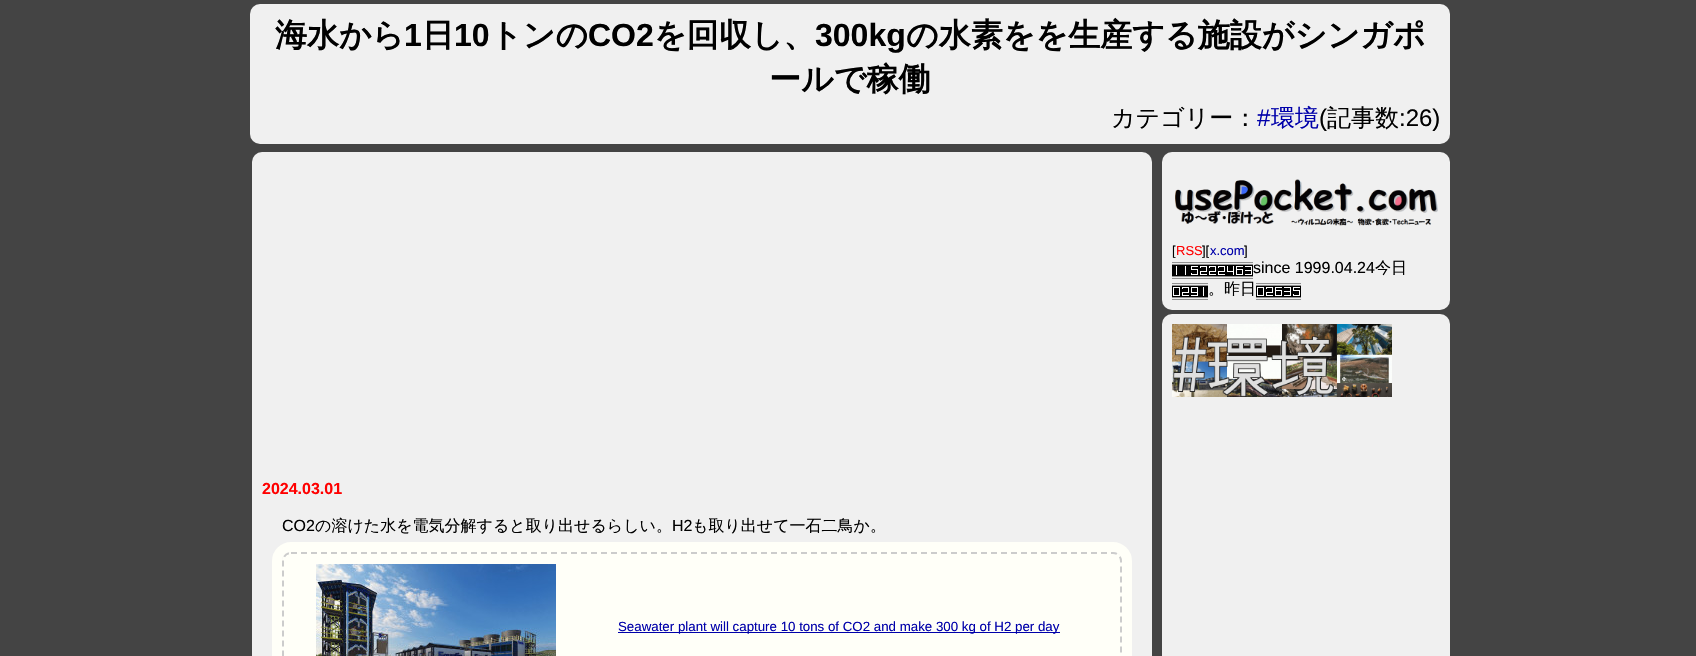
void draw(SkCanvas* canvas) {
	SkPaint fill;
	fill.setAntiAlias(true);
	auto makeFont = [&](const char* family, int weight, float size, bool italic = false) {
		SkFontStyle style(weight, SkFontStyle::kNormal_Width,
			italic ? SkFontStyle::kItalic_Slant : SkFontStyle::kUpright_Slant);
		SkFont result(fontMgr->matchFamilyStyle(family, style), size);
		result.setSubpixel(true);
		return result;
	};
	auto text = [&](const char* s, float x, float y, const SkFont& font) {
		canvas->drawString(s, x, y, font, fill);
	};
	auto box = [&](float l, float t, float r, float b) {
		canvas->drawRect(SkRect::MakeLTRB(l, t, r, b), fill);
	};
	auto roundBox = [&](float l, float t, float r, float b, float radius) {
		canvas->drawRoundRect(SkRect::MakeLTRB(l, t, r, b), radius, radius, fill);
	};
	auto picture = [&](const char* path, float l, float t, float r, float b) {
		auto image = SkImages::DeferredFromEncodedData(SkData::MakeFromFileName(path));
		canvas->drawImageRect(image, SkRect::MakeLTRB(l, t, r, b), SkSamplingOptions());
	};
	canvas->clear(0xFF444444);
	fill.setColor(0xFFF0F0F0);
	roundBox(250, 4, 1450, 144, 10);
	roundBox(1162, 152, 1450, 310, 10);
	picture("image0.png", 1175, 179, 1439, 226);
	picture("image1.png", 1172, 262, 1253, 279);
	picture("image2.png", 1172, 283, 1208, 300);
	picture("image3.png", 1256, 283, 1301, 300);
	roundBox(252, 152, 1152, 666, 10);
	fill.setStyle(SkPaint::kStroke_Style);
	fill.setStrokeWidth(10);
	fill.setColor(0xFFFFFFF8);
	canvas->drawRoundRect(SkRect::MakeLTRB(277, 547, 1127, 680), 14, 14, fill);
	fill.setStyle(SkPaint::kFill_Style);
	roundBox(282, 552, 1122, 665, 9);
	fill.setStyle(SkPaint::kStroke_Style);
	fill.setStrokeWidth(2);
	fill.setColor(0xFFCCCCCC);
	fill.setPathEffect(SkDashPathEffect::Make({{6, 4}}, 0));
	canvas->drawPath(SkPathBuilder().moveTo(291, 553).lineTo(1113, 553).cubicTo(1117.5f, 553, 1121, 556.5f, 1121, 561).lineTo(1121, 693).cubicTo(1121, 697.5f, 1117.5f, 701, 1113, 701).lineTo(291, 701).cubicTo(286.5f, 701, 283, 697.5f, 283, 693).lineTo(283, 561).cubicTo(283, 556.5f, 286.5f, 553, 291, 553).close().detach(), fill);
	fill.setPathEffect(nullptr);
	picture("image4.png", 316, 564, 556, 656);
	fill.setStyle(SkPaint::kFill_Style);
	fill.setColor(0xFF0000AA);
	box(618, 632, 1060, 633);
	fill.setColor(0xFFF0F0F0);
	roundBox(1162, 314, 1450, 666, 10);
	picture("image5.png", 1172, 324, 1392, 397);
	auto font1 = makeFont("WenQuanYi Zen Hei", 700, 32);
	fill.setColor(0xFF000000);
	text("海水から", 275, 46, font1);
	auto font2 = makeFont("Liberation Sans", 700, 32);
	text("1", 404, 46, font2);
	text("日", 422, 46, font1);
	text("10", 454, 46, font2);
	text("トンの", 490, 46, font1);
	text("CO2", 588, 46, font2);
	text("を回収し、", 654, 46, font1);
	text("300kg", 815, 46, font2);
	text("の水素をを生産する施設がシンガポ", 906, 46, font1);
	text("ールで稼働", 769, 90, font1);
	auto font3 = makeFont("WenQuanYi Zen Hei", 500, 24);
	text("カテゴリー：", 1111, 126, font3);
	auto font4 = makeFont("Liberation Sans", 400, 24);
	fill.setColor(0xFF0000AA);
	text("#", 1257, 126, font4);
	text("環境", 1271, 126, font3);
	fill.setColor(0xFF000000);
	text("(", 1319, 126, font4);
	text("記事数", 1327, 126, font3);
	text(":26)", 1399, 126, font4);
	auto font5 = makeFont("Liberation Sans", 400, 13);
	text("[", 1172, 255, font5);
	fill.setColor(0xFFFF0000);
	text("RSS", 1176, 255, font5);
	fill.setColor(0xFF000000);
	text("][", 1202, 255, font5);
	fill.setColor(0xFF0000AA);
	text("x.com", 1210, 255, font5);
	fill.setColor(0xFF000000);
	text("]", 1244, 255, font5);
	auto font6 = makeFont("Liberation Sans", 400, 16);
	text("since 1999.04.24", 1253, 273, font6);
	auto font7 = makeFont("WenQuanYi Zen Hei", 500, 16);
	text("今日", 1375, 273, font7);
	text("。昨日", 1208, 294, font7);
	auto font8 = makeFont("Liberation Sans", 700, 16);
	fill.setColor(0xFFFF0000);
	text("2024.03.01", 262, 494, font8);
	fill.setColor(0xFF000000);
	text("CO2", 282, 531, font6);
	text("の溶けた水を電気分解すると取り出せるらしい。", 315, 531, font7);
	text("H2", 672, 531, font6);
	text("も取り出せて一石二鳥か。", 692, 531, font7);
	auto font9 = makeFont("Liberation Sans", 400, 13.3f);
	fill.setColor(0xFF0000AA);
	text("Seawater plant will capture 10 tons of CO2 and make 300 kg of H2 per day", 618, 631, font9);
}
